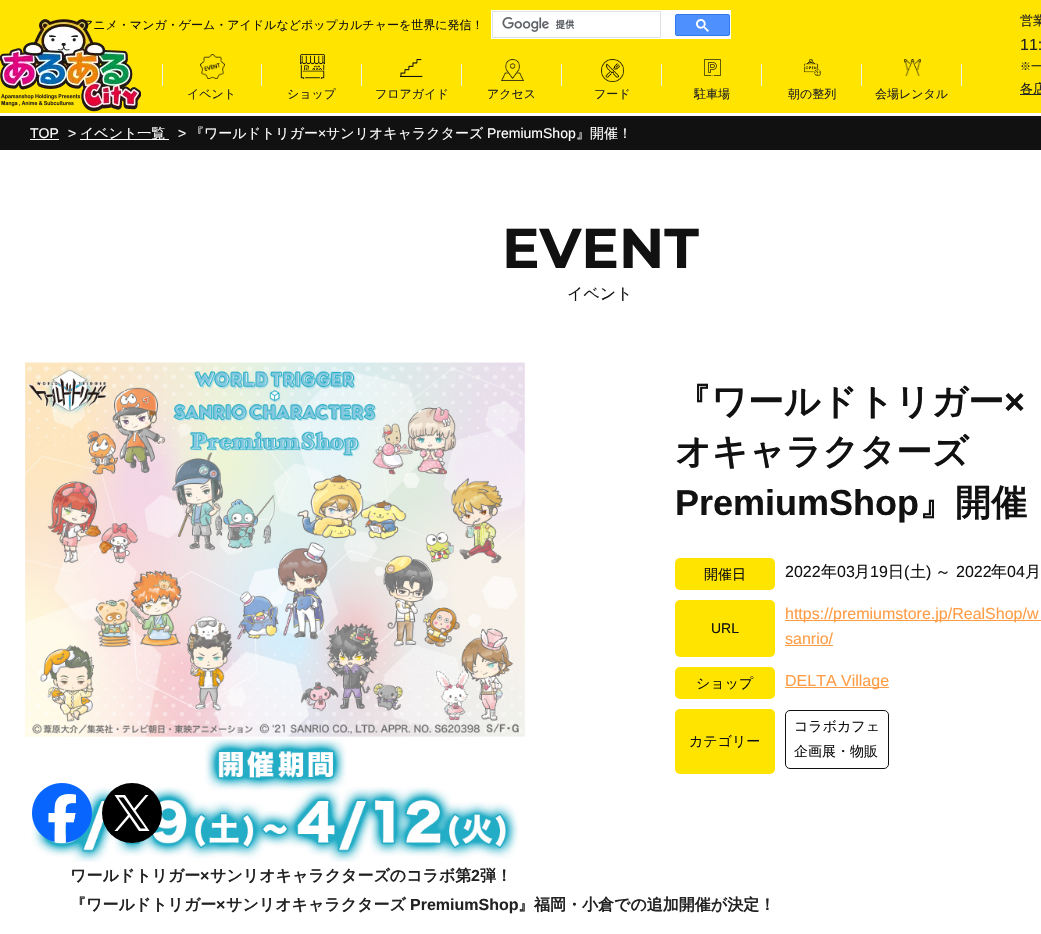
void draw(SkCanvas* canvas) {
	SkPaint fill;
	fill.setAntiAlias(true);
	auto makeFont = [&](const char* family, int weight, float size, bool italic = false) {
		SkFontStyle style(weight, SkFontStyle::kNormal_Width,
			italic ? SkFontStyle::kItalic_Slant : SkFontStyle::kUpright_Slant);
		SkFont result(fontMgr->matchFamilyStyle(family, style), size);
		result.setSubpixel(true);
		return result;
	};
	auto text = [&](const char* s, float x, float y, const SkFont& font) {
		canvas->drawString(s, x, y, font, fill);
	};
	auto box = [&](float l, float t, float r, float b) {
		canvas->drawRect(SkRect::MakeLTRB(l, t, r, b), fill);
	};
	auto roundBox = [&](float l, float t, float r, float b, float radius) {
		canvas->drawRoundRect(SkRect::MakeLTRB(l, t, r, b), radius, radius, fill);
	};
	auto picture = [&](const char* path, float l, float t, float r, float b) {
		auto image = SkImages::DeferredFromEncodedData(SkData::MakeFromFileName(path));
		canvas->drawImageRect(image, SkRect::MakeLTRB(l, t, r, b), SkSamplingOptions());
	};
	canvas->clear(0xFFFFFFFF);
	fill.setColor(0xFFFFE400);
	box(0, 0, 1041, 113);
	picture("image0.png", 0, 19, 141, 112);
	fill.setColor(0xFFEEEEEE);
	box(162, 64, 163, 86);
	box(261, 64, 262, 86);
	picture("image1.png", 200, 54, 225, 79);
	box(361, 64, 362, 86);
	picture("image2.png", 300, 54, 325, 79);
	box(461, 64, 462, 86);
	picture("image3.png", 400, 59, 423, 77);
	box(561, 64, 562, 86);
	picture("image4.png", 501, 59, 524, 81);
	box(661, 64, 662, 86);
	picture("image5.png", 601, 59, 624, 82);
	box(761, 64, 762, 86);
	picture("image6.png", 704, 59, 721, 76);
	box(861, 64, 862, 86);
	picture("image7.png", 804, 59, 821, 76);
	box(961, 64, 962, 86);
	picture("image8.png", 904, 59, 921, 76);
	fill.setColor(0xFF222222);
	box(1020, 94, 1041, 95);
	fill.setColor(0xFFFFFFFF);
	box(491, 10, 731, 39);
	fill.setStyle(SkPaint::kStroke_Style);
	fill.setStrokeWidth(1);
	fill.setColor(0xFFDFE1E5);
	canvas->drawRect(SkRect::MakeLTRB(492.5f, 11.5f, 660.5f, 37.5f), fill);
	picture("image9.png", 502, 17, 575, 32);
	fill.setStyle(SkPaint::kFill_Style);
	fill.setColor(0xFF4D90FE);
	canvas->drawRoundRect(SkRect::MakeLTRB(675.5f, 14.5f, 729.5f, 35.5f), 1.5f, 1.5f, fill);
	fill.setStyle(SkPaint::kStroke_Style);
	fill.setColor(0xFF3079ED);
	canvas->drawRoundRect(SkRect::MakeLTRB(675.5f, 14.5f, 729.5f, 35.5f), 1.5f, 1.5f, fill);
	picture("image10.png", 696, 19, 709, 32);
	fill.setStyle(SkPaint::kFill_Style);
	fill.setColor(0xFF111111);
	box(0, 116, 1041, 150);
	fill.setColor(0xFFFFFFFF);
	box(30, 139, 59, 140);
	box(80, 139, 169, 140);
	picture("image11.png", 25, 362, 525, 862);
	fill.setColor(0xFFFFE400);
	roundBox(675, 558, 775, 590, 5);
	roundBox(675, 600, 775, 657, 5);
	fill.setColor(0xFFFF9D46);
	box(785, 620, 1041, 621);
	box(785, 645, 833, 646);
	fill.setColor(0xFFFFE400);
	roundBox(675, 667, 775, 699, 5);
	fill.setColor(0xFFFF9D46);
	box(785, 687, 889, 688);
	fill.setColor(0xFFFFE400);
	roundBox(675, 709, 775, 774, 5);
	fill.setStyle(SkPaint::kStroke_Style);
	fill.setColor(0xFF111111);
	canvas->drawRoundRect(SkRect::MakeLTRB(785.5f, 710.5f, 888.5f, 768.5f), 4.5f, 4.5f, fill);
	picture("image12.png", 32, 783, 92, 843);
	fill.setStyle(SkPaint::kFill_Style);
	fill.setColor(0xFF000000);
	canvas->drawCircle(132, 813, 30, fill);
	fill.setColor(0xFFFFFFFF);
	canvas->drawPath(SkPathBuilder().moveTo(135.5f, 810.5f).lineTo(148.5f, 795).lineTo(145.5f, 795).lineTo(134, 808.5f).lineTo(125, 795).lineTo(114.5f, 795).lineTo(128, 815).lineTo(114.5f, 831).lineTo(117.5f, 831).lineTo(129.5f, 817).lineTo(139, 831).lineTo(149.5f, 831).close().moveTo(131, 815).lineTo(118.5f, 797.5f).lineTo(123.5f, 797.5f).lineTo(145.5f, 828.5f).lineTo(140.5f, 828.5f).close().detach(), fill);
	auto font1 = makeFont("WenQuanYi Zen Hei", 500, 12);
	fill.setColor(0xFF222222);
	text("イベント", 187, 98, font1);
	text("ショップ", 287, 98, font1);
	text("フロアガイド", 375, 98, font1);
	text("アクセス", 487, 98, font1);
	text("フード", 594, 98, font1);
	text("駐車場", 694, 98, font1);
	text("朝の整列", 788, 98, font1);
	text("会場レンタル", 875, 98, font1);
	auto font2 = makeFont("WenQuanYi Zen Hei", 500, 13);
	text("営業", 1020, 25, font2);
	auto font3 = makeFont("Liberation Sans", 400, 16);
	text("11:", 1020, 50, font3);
	auto font4 = makeFont("WenQuanYi Zen Hei", 500, 11);
	text("※一", 1020, 70, font4);
	text("各店", 1020, 93, font2);
	fill.setColor(0xFF111111);
	text("アニメ・マンガ・ゲーム・アイドルなどポップカルチャーを世界に発信！", 81, 29, font1);
	auto font5 = makeFont("Liberation Sans", 400, 14);
	fill.setColor(0xFFFFFFFF);
	text("TOP", 30, 138, font5);
	text(">", 68, 138, font5);
	auto font6 = makeFont("WenQuanYi Zen Hei", 500, 14);
	text("イベント一覧", 80, 138, font6);
	text(">", 178, 138, font5);
	text("『ワールドトリガー", 190, 138, font6);
	text("×", 318, 138, font5);
	text("サンリオキャラクターズ", 326, 138, font6);
	text("PremiumShop", 487, 138, font5);
	text("』開催！", 576, 138, font6);
	auto font7 = makeFont("Montserrat", 700, 56);
	fill.setColor(0xFF111111);
	text("EVENT", 502, 268, font7);
	auto font8 = makeFont("WenQuanYi Zen Hei", 500, 16);
	text("イベント", 567, 299, font8);
	auto font9 = makeFont("WenQuanYi Zen Hei", 700, 36);
	text("『ワールドトリガー", 675, 414, font9);
	auto font10 = makeFont("Liberation Sans", 700, 36);
	text("×", 1004, 414, font10);
	text("オキャラクターズ", 675, 464, font9);
	text("PremiumShop", 675, 515, font10);
	text("』開催", 919, 515, font9);
	text("開催日", 704, 579, font6);
	text("2022", 785, 577, font3);
	text("年", 821, 577, font8);
	text("03", 837, 577, font3);
	text("月", 854, 577, font8);
	text("19", 870, 577, font3);
	text("日", 888, 577, font8);
	text("(", 904, 577, font3);
	text("土", 910, 577, font8);
	text(")", 926, 577, font3);
	text("～", 935, 577, font8);
	text("2022", 956, 577, font3);
	text("年", 991, 577, font8);
	text("04", 1007, 577, font3);
	text("月", 1025, 577, font8);
	text("URL", 711, 633, font5);
	fill.setColor(0xFFFF9D46);
	text("https://premiumstore.jp/RealShop/w", 785, 619, font3);
	text("sanrio/", 785, 644, font3);
	fill.setColor(0xFF111111);
	text("ショップ", 696, 688, font6);
	fill.setColor(0xFFFF9D46);
	text("DELTA Village", 785, 686, font3);
	fill.setColor(0xFF111111);
	text("カテゴリー", 689, 746, font6);
	text("コラボカフェ", 794, 731, font6);
	text("企画展・物販", 794, 756, font6);
	auto font11 = makeFont("WenQuanYi Zen Hei", 700, 16);
	fill.setColor(0xFF222222);
	text("ワールドトリガー", 70, 881, font11);
	auto font12 = makeFont("Liberation Sans", 700, 16);
	text("×", 200, 881, font12);
	text("サンリオキャラクターズのコラボ第", 210, 881, font11);
	text("2", 471, 881, font12);
	text("弾！", 480, 881, font11);
	text("『ワールドトリガー", 70, 910, font11);
	text("×", 216, 910, font12);
	text("サンリオキャラクターズ", 226, 910, font11);
	text("PremiumShop", 410, 910, font12);
	text("』福岡・小倉での追加開催が決定！", 518, 910, font11);
}
